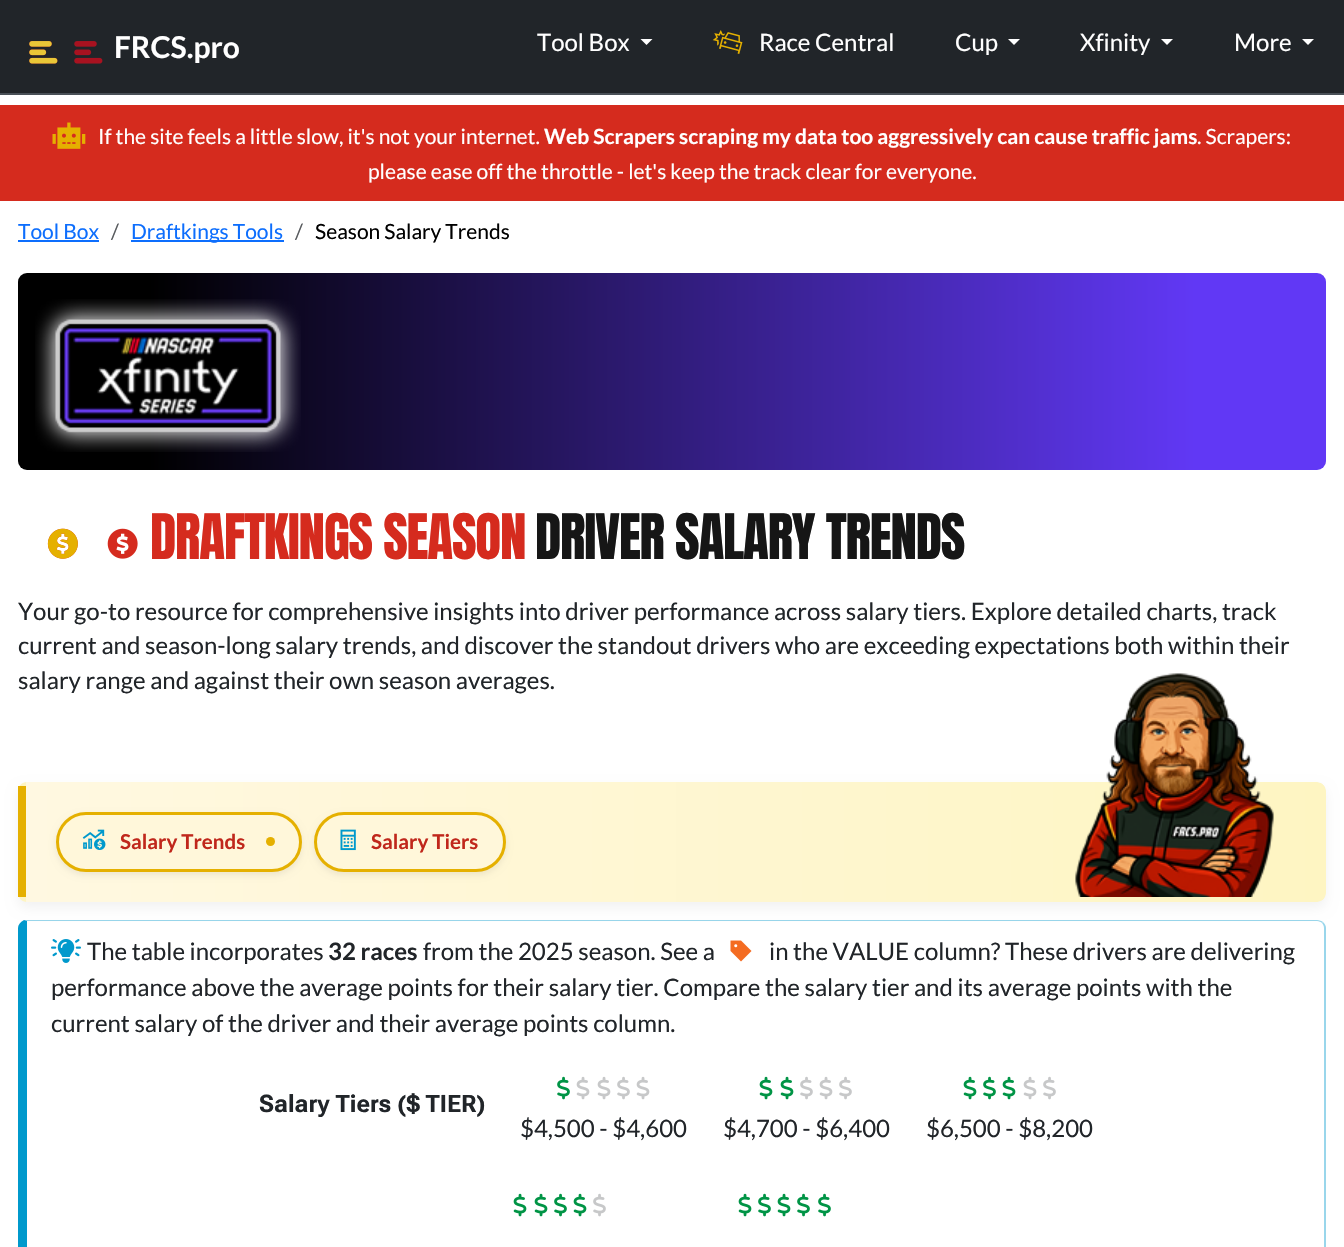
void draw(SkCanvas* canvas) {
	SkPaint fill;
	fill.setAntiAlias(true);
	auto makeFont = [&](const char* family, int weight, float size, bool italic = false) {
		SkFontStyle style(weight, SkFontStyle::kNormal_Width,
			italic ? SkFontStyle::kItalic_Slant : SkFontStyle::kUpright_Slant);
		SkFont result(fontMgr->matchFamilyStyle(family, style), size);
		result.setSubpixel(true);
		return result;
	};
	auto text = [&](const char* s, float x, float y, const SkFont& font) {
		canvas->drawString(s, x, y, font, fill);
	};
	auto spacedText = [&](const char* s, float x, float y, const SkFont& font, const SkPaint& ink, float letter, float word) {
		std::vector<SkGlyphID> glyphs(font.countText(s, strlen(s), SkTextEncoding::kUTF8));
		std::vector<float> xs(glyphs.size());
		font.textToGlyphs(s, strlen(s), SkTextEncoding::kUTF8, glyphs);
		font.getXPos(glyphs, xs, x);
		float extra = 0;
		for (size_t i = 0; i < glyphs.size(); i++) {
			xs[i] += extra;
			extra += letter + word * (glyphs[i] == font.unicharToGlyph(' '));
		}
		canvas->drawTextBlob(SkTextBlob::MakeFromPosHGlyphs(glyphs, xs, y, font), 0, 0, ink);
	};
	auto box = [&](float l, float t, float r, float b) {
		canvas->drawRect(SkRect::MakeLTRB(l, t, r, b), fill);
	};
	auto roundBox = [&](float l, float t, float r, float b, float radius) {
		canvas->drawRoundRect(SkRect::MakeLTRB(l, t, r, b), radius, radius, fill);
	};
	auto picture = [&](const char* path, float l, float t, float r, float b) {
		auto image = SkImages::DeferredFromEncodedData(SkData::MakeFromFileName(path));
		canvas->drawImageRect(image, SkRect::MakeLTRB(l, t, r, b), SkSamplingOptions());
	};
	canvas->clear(0xFFFFFFFF);
	fill.setColor(0xFF212529);
	box(0, 0, 1344, 93);
	fill.setColor(0xFF495057);
	box(0, 93, 1344, 95);
	picture("image0.png", 29, 41, 103, 64);
	picture("image1.png", 29, 41, 58, 64);
	fill.setColor(0xFFFFFFFF);
	canvas->drawPath(SkPathBuilder().moveTo(640.5f, 39).lineTo(652.5f, 39).lineTo(646.5f, 45).close().detach(), fill);
	picture("image2.png", 712, 30, 743, 54);
	canvas->drawPath(SkPathBuilder().moveTo(1008, 39).lineTo(1020, 39).lineTo(1014, 45).close().detach(), fill);
	canvas->drawPath(SkPathBuilder().moveTo(1161, 39).lineTo(1173, 39).lineTo(1167, 45).close().detach(), fill);
	canvas->drawPath(SkPathBuilder().moveTo(1302, 39).lineTo(1314, 39).lineTo(1308, 45).close().detach(), fill);
	fill.setColor(0xFFD52B1E);
	box(0, 105, 1344, 201);
	picture("image3.png", 52, 122, 86, 149);
	fill.setColor(0xFF0D6EFD);
	box(18, 240, 99, 242);
	box(131, 240, 284, 242);
	picture("image4.png", 18, 273, 1326, 470);
	{
		const SkColor colors[] = {0xFF000000, 0xFF6138F5};
		const float stops[] = {0.1f, 0.9f};
		const SkPoint ends[] = {{18, 371}, {1326, 371}};
		fill.setShader(SkGradientShader::MakeLinear(ends, colors, stops, 2, SkTileMode::kClamp));
		fill.setAlpha(255);
	}
	roundBox(18, 273, 1326, 470, 9);
	picture("image5.png", 35, 299, 301, 452);
	picture("image6.png", 47, 528, 138, 559);
	picture("image7.png", 47, 528, 78, 559);
	fill.setShader(nullptr);
	fill.setColor(0xFF99D6EB);
	canvas->drawPath(SkPathBuilder().moveTo(27, 920).lineTo(24, 920).lineTo(27, 921).lineTo(1317, 921).cubicTo(1319, 921, 1321, 922, 1322, 923).lineTo(1323, 922).cubicTo(1322, 921, 1319, 920, 1317, 920).close().detach(), fill);
	canvas->drawPath(SkPathBuilder().moveTo(1323, 922).cubicTo(1325, 924, 1326, 926, 1326, 928).lineTo(1326, 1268).cubicTo(1326, 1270, 1325, 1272, 1323, 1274).lineTo(1322, 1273).cubicTo(1323, 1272, 1324, 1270, 1324, 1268).lineTo(1324, 928).cubicTo(1324, 926, 1323, 924, 1322, 923).close().detach(), fill);
	fill.setColor(0xFF0099CC);
	canvas->drawPath(SkPathBuilder().moveTo(27, 921).lineTo(24, 920).cubicTo(20, 922, 18, 925, 18, 928).lineTo(18, 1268).cubicTo(18, 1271, 20, 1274, 24, 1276).lineTo(27, 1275).close().detach(), fill);
	fill.setColor(0x0D000000);
	fill.setMaskFilter(SkMaskFilter::MakeBlur(kNormal_SkBlurStyle, 6));
	canvas->drawRoundRect(SkRect::MakeLTRB(18, 788, 1326, 908), 9, 9, fill);
	fill.setMaskFilter(nullptr);
	canvas->save();
	canvas->clipPath(SkPathBuilder().moveTo(27, 782).lineTo(1317, 782).cubicTo(1322, 782, 1326, 786, 1326, 791).lineTo(1326, 893).cubicTo(1326, 898, 1322, 902, 1317, 902).lineTo(27, 902).cubicTo(22, 902, 18, 898, 18, 893).lineTo(18, 791).cubicTo(18, 786, 22, 782, 27, 782).close().detach(), true);
	{
		const SkColor colors[] = {0xFFFFF8E1, 0xFFFEF5C2};
		const float stops[] = {0, 1};
		const SkPoint ends[] = {{-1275, 842}, {26, 842}};
		fill.setShader(SkGradientShader::MakeLinear(ends, colors, stops, 2, SkTileMode::kClamp));
		fill.setAlpha(255);
	}
	box(19, 782, 26, 902);
	{
		const SkColor colors[] = {0xFFFFF8E1, 0xFFFEF5C2};
		const float stops[] = {0, 1};
		const SkPoint ends[] = {{26, 842}, {1326, 842}};
		fill.setShader(SkGradientShader::MakeLinear(ends, colors, stops, 2, SkTileMode::kClamp));
		fill.setAlpha(255);
	}
	canvas->drawPath(SkPathBuilder().moveTo(26, 782).lineTo(1317, 782).cubicTo(1322, 782, 1326, 786, 1326, 791).lineTo(1326, 893).cubicTo(1326, 898, 1322, 902, 1317, 902).lineTo(26, 902).close().detach(), fill);
	canvas->restore();
	fill.setShader(nullptr);
	fill.setColor(0xFFE5B000);
	box(18, 786, 26, 897);
	fill.setColor(0x12000000);
	fill.setMaskFilter(SkMaskFilter::MakeBlur(kNormal_SkBlurStyle, 3));
	canvas->drawRoundRect(SkRect::MakeLTRB(56, 815, 302, 875), 30, 30, fill);
	fill.setMaskFilter(nullptr);
	fill.setColor(0xFFFFF7DA);
	canvas->drawRoundRect(SkRect::MakeLTRB(57.5f, 813.5f, 300.5f, 870.5f), 28.5f, 28.5f, fill);
	fill.setStyle(SkPaint::kStroke_Style);
	fill.setStrokeWidth(3);
	fill.setColor(0xFFE5B000);
	canvas->drawRoundRect(SkRect::MakeLTRB(57.5f, 813.5f, 300.5f, 870.5f), 28.5f, 28.5f, fill);
	picture("image8.png", 82, 829, 106, 850);
	fill.setStyle(SkPaint::kFill_Style);
	canvas->drawCircle(270.5f, 841.5f, 4.5f, fill);
	fill.setColor(0x12000000);
	fill.setMaskFilter(SkMaskFilter::MakeBlur(kNormal_SkBlurStyle, 3));
	canvas->drawRoundRect(SkRect::MakeLTRB(314, 815, 506, 875), 30, 30, fill);
	fill.setMaskFilter(nullptr);
	fill.setColor(0xFFFFF7DA);
	canvas->drawRoundRect(SkRect::MakeLTRB(315.5f, 813.5f, 504.5f, 870.5f), 28.5f, 28.5f, fill);
	fill.setStyle(SkPaint::kStroke_Style);
	fill.setColor(0xFFE5B000);
	canvas->drawRoundRect(SkRect::MakeLTRB(315.5f, 813.5f, 504.5f, 870.5f), 28.5f, 28.5f, fill);
	picture("image9.png", 340, 829, 356, 851);
	picture("image10.png", 1075, 673, 1274, 897);
	picture("image11.png", 51, 939, 81, 963);
	picture("image12.png", 730, 940, 752, 962);
	picture("image13.png", 557, 1076, 570, 1100);
	picture("image14.png", 576, 1076, 590, 1100);
	picture("image14.png", 597, 1076, 611, 1100);
	picture("image15.png", 617, 1076, 630, 1100);
	picture("image14.png", 636, 1076, 650, 1100);
	picture("image16.png", 759, 1076, 773, 1100);
	picture("image16.png", 780, 1076, 794, 1100);
	picture("image15.png", 800, 1076, 813, 1100);
	picture("image14.png", 819, 1076, 833, 1100);
	picture("image15.png", 839, 1076, 852, 1100);
	picture("image16.png", 963, 1076, 977, 1100);
	picture("image13.png", 983, 1076, 996, 1100);
	picture("image16.png", 1002, 1076, 1016, 1100);
	picture("image14.png", 1023, 1076, 1037, 1100);
	picture("image15.png", 1043, 1076, 1056, 1100);
	picture("image16.png", 513, 1193, 527, 1217);
	picture("image16.png", 534, 1193, 548, 1217);
	picture("image13.png", 554, 1193, 567, 1217);
	picture("image16.png", 573, 1193, 587, 1217);
	picture("image15.png", 593, 1193, 606, 1217);
	picture("image16.png", 738, 1193, 752, 1217);
	picture("image13.png", 758, 1193, 771, 1217);
	picture("image16.png", 777, 1193, 791, 1217);
	picture("image13.png", 797, 1193, 810, 1217);
	picture("image13.png", 818, 1193, 831, 1217);
	auto font1 = makeFont("Lato", 700, 30);
	fill.setStyle(SkPaint::kFill_Style);
	fill.setColor(0xFFFFFFFF);
	text("FRCS.pro", 114, 58, font1);
	auto font2 = makeFont("Lato", 400, 24);
	text("Tool Box", 537, 51, font2);
	text("Race Central", 759, 51, font2);
	text("Cup", 955, 51, font2);
	text("Xfinity", 1080, 51, font2);
	text("More", 1234, 51, font2);
	auto font3 = makeFont("Lato", 400, 21);
	text("If the site feels a little slow, it's not your internet.", 98, 144, font3);
	auto font4 = makeFont("Lato", 700, 21);
	text("Web Scrapers scraping my data too aggressively can cause traffic jams", 544, 144, font4);
	text(". Scrapers:", 1197, 144, font3);
	text("please ease off the throttle - let's keep the track clear for everyone.", 368, 179, font3);
	fill.setColor(0xFF0D6EFD);
	text("Tool Box", 18, 239, font3);
	fill.setColor(0xFF595C5F);
	text("/", 111, 239, font3);
	fill.setColor(0xFF0D6EFD);
	text("Draftkings Tools", 131, 239, font3);
	fill.setColor(0xFF595C5F);
	text("/", 295, 239, font3);
	fill.setColor(0xFF000000);
	text("Season Salary Trends", 315, 239, font3);
	auto font5 = makeFont("Anton SC", 400, 53.25f);
	fill.setColor(0xFFD52B1E);
	spacedText("DRAFTKINGS SEASON", 150, 559, font5, fill, -1.2f, 0);
	fill.setColor(0xFF161616);
	spacedText("DRIVER SALARY TRENDS", 535, 559, font5, fill, -1.2f, 0);
	fill.setColor(0xFF212529);
	text("Your go-to resource for comprehensive insights into driver performance across salary tiers. Explore detailed charts, track", 18, 620, font2);
	text("current and season-long salary trends, and discover the standout drivers who are exceeding expectations both within their", 18, 654, font2);
	text("salary range and against their own season averages.", 18, 689, font2);
	auto font6 = makeFont("Lato", 700, 20.5f);
	fill.setColor(0xFFC0271B);
	text("Salary Trends", 120, 849, font6);
	text("Salary Tiers", 371, 849, font6);
	fill.setColor(0xFF212529);
	text("The table incorporates", 87, 960, font2);
	auto font7 = makeFont("Lato", 700, 24);
	text("32 races", 328, 960, font7);
	text("from the 2025 season. See a", 423, 960, font2);
	text("in the VALUE column? These drivers are delivering", 769, 960, font2);
	text("performance above the average points for their salary tier. Compare the salary tier and its average points with the", 51, 996, font2);
	text("current salary of the driver and their average points column.", 51, 1032, font2);
	auto font8 = makeFont("Roboto Flex", 700, 24);
	text("Salary Tiers ($ TIER)", 259, 1112, font8);
	text("$4,500 - $4,600", 520, 1137, font2);
	text("$4,700 - $6,400", 723, 1137, font2);
	text("$6,500 - $8,200", 926, 1137, font2);
}
